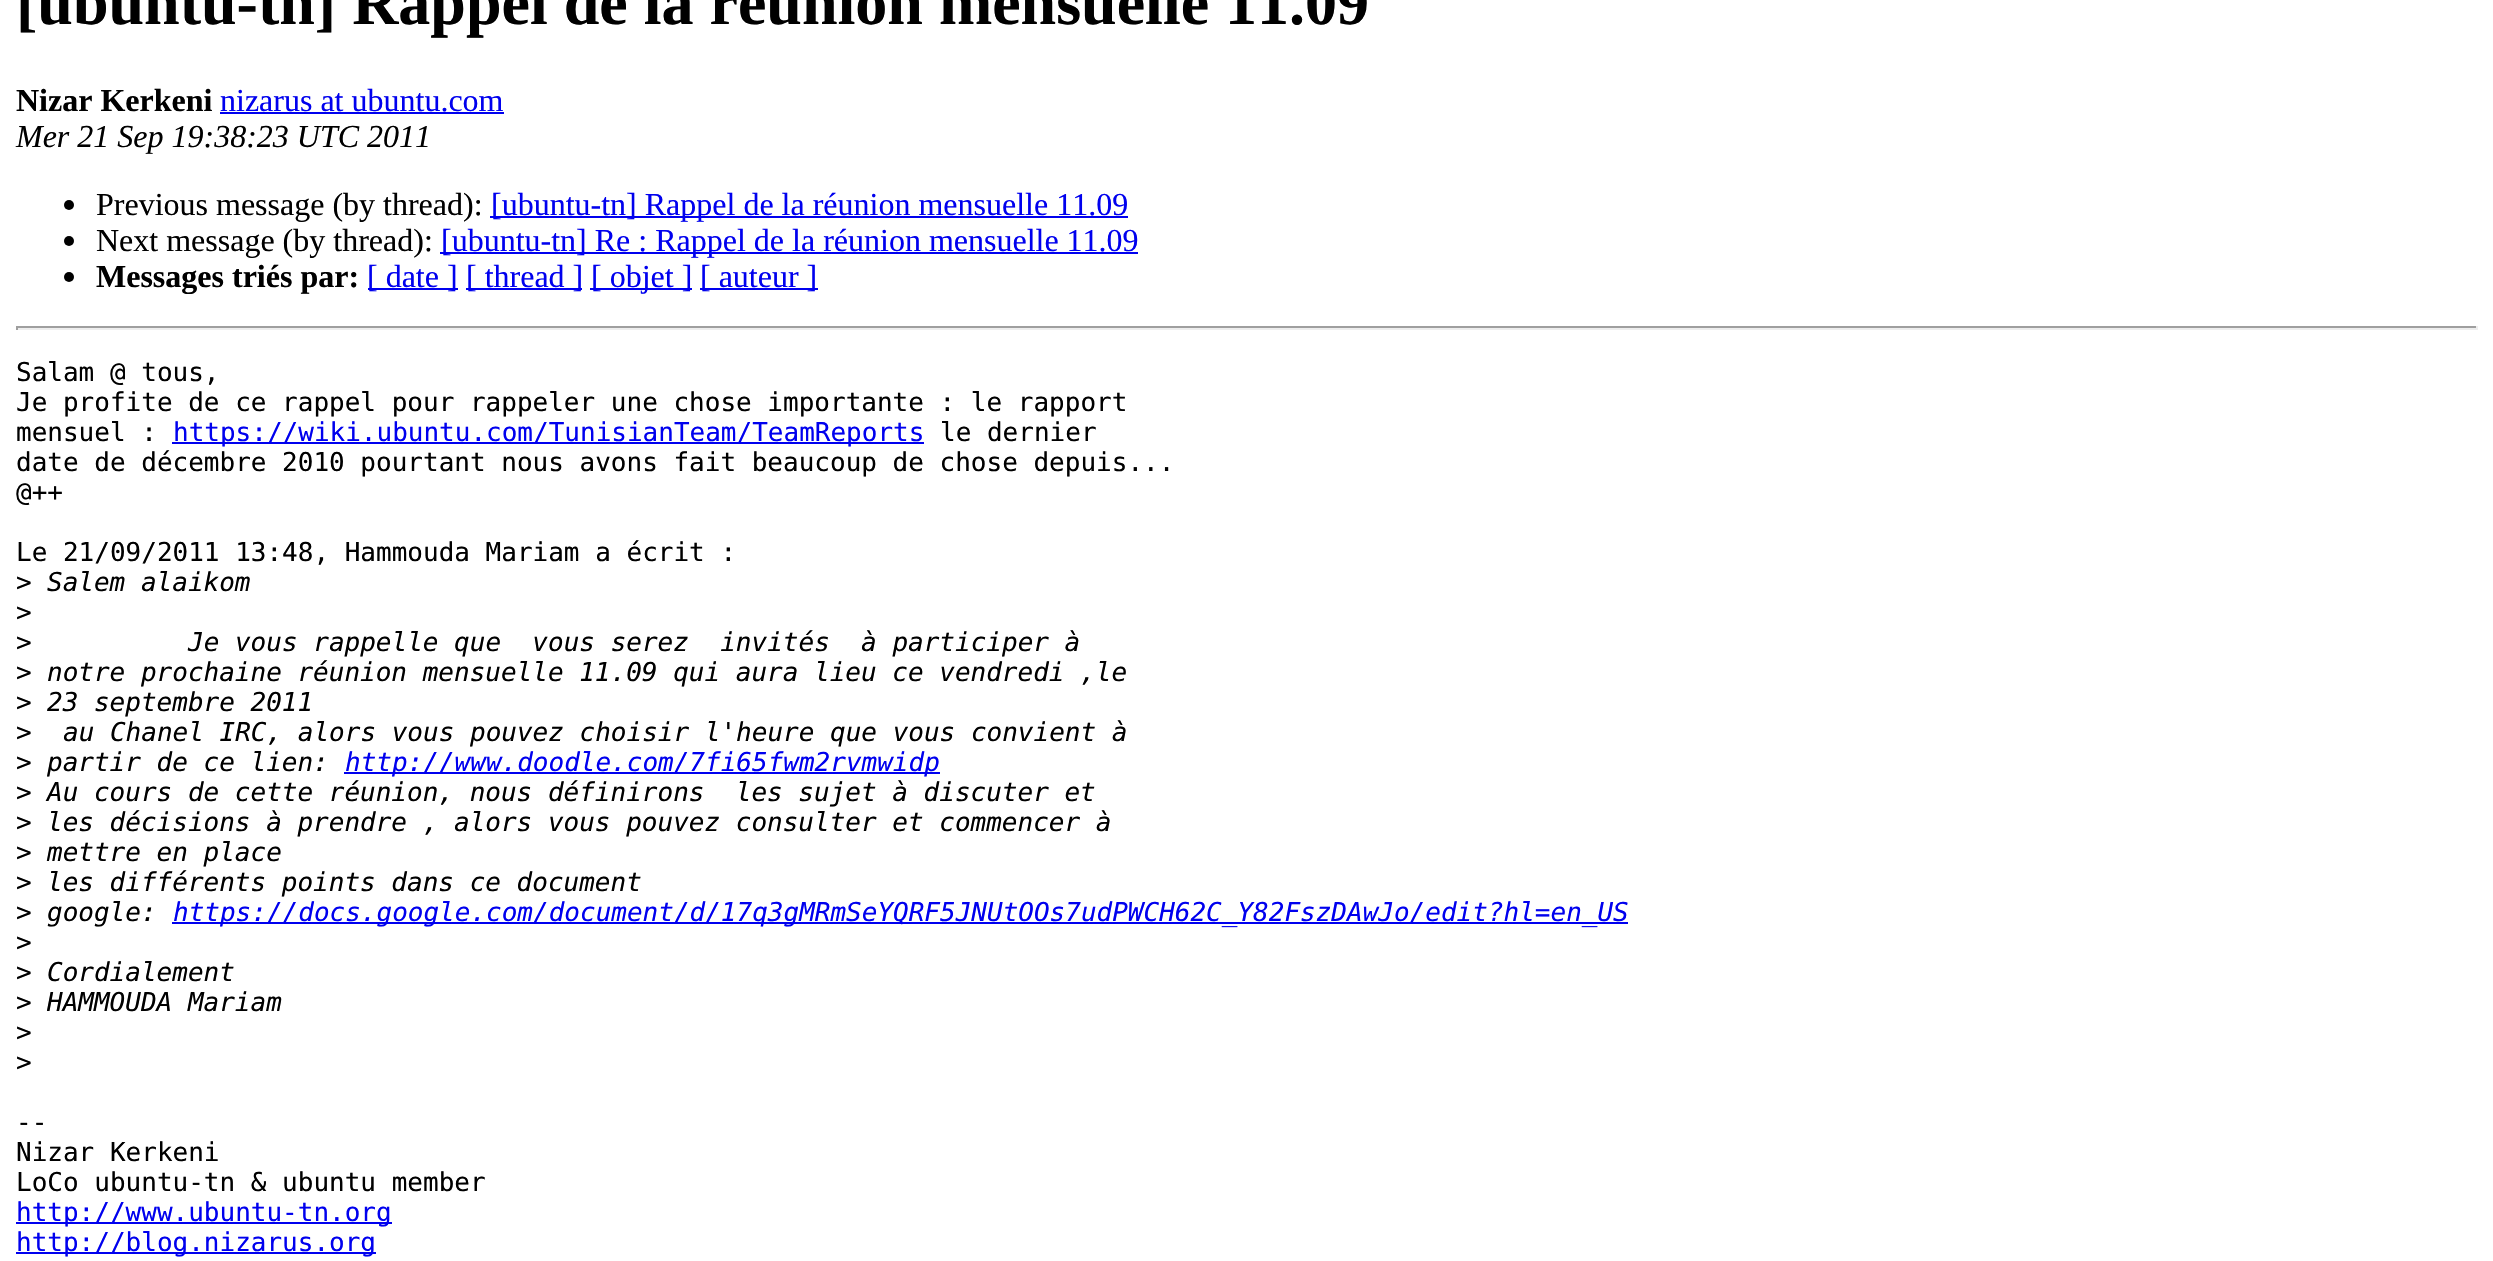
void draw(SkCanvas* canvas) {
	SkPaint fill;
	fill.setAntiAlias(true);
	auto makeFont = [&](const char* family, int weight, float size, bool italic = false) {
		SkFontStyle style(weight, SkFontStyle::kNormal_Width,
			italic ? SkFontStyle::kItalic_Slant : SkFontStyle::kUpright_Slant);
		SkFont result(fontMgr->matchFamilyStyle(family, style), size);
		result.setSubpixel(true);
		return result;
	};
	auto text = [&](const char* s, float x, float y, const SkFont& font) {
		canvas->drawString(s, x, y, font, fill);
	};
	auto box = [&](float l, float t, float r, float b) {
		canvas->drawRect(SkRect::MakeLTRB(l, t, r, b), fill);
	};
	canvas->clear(0xFFFFFFFF);
	fill.setColor(0xFF0000EE);
	box(220, 112, 504, 114);
	fill.setColor(0xFF000000);
	canvas->drawCircle(69, 205, 5, fill);
	fill.setColor(0xFF0000EE);
	box(490, 216, 1128, 218);
	fill.setColor(0xFF000000);
	canvas->drawCircle(69, 241, 5, fill);
	fill.setColor(0xFF0000EE);
	box(440, 252, 1138, 254);
	fill.setColor(0xFF000000);
	canvas->drawCircle(69, 277, 5, fill);
	fill.setColor(0xFF0000EE);
	box(368, 288, 458, 290);
	box(466, 288, 582, 290);
	box(590, 288, 692, 290);
	box(700, 288, 818, 290);
	fill.setColor(0xFF9F9F9F);
	box(16, 326, 2478, 328);
	fill.setColor(0xFFEEEEEE);
	box(2476, 326, 2478, 330);
	box(16, 328, 2478, 330);
	fill.setColor(0xFF9F9F9F);
	box(16, 326, 18, 330);
	fill.setColor(0xFF0000EE);
	box(172, 442, 924, 444);
	box(344, 772, 940, 774);
	box(172, 922, 1628, 924);
	box(16, 1222, 392, 1224);
	box(16, 1252, 376, 1254);
	auto font1 = makeFont("Liberation Serif", 700, 64);
	fill.setColor(0xFF000000);
	text("[ubuntu-tn] Rappel de la réunion mensuelle 11.09", 16, 24, font1);
	auto font2 = makeFont("Liberation Serif", 700, 32);
	text("Nizar Kerkeni", 16, 111, font2);
	auto font3 = makeFont("Liberation Serif", 400, 32);
	fill.setColor(0xFF0000EE);
	text("nizarus at ubuntu.com", 220, 111, font3);
	auto font4 = makeFont("Liberation Serif", 400, 32, true);
	fill.setColor(0xFF000000);
	text("Mer 21 Sep 19:38:23 UTC 2011", 16, 147, font4);
	text("Previous message (by thread):", 96, 215, font3);
	fill.setColor(0xFF0000EE);
	text("[ubuntu-tn] Rappel de la réunion mensuelle 11.09", 491, 215, font3);
	fill.setColor(0xFF000000);
	text("Next message (by thread):", 96, 251, font3);
	fill.setColor(0xFF0000EE);
	text("[ubuntu-tn] Re : Rappel de la réunion mensuelle 11.09", 441, 251, font3);
	fill.setColor(0xFF000000);
	text("Messages triés par:", 96, 287, font2);
	fill.setColor(0xFF0000EE);
	text("[ date ]", 367, 287, font3);
	text("[ thread ]", 466, 287, font3);
	text("[ objet ]", 591, 287, font3);
	text("[ auteur ]", 700, 287, font3);
	auto font5 = makeFont("DejaVu Sans Mono", 400, 26);
	fill.setColor(0xFF000000);
	text("Salam @ tous,", 16, 381, font5);
	text("Je profite de ce rappel pour rappeler une chose importante : le rapport", 16, 411, font5);
	text("mensuel :", 16, 441, font5);
	fill.setColor(0xFF0000EE);
	text("https://wiki.ubuntu.com/TunisianTeam/TeamReports", 173, 441, font5);
	fill.setColor(0xFF000000);
	text("le dernier", 940, 441, font5);
	text("date de décembre 2010 pourtant nous avons fait beaucoup de chose depuis...", 16, 471, font5);
	text("@++", 16, 501, font5);
	text("Le 21/09/2011 13:48, Hammouda Mariam a écrit :", 16, 561, font5);
	text(">", 16, 591, font5);
	auto font6 = makeFont("DejaVu Sans Mono", 400, 26, true);
	text("Salem alaikom", 47, 591, font6);
	text(">", 16, 621, font5);
	text(">", 16, 651, font5);
	text("Je vous rappelle que  vous serez  invités  à participer à", 188, 651, font6);
	text(">", 16, 681, font5);
	text("notre prochaine réunion mensuelle 11.09 qui aura lieu ce vendredi ,le", 47, 681, font6);
	text(">", 16, 711, font5);
	text("23 septembre 2011", 47, 711, font6);
	text(">", 16, 741, font5);
	text("au Chanel IRC, alors vous pouvez choisir l'heure que vous convient à", 63, 741, font6);
	text(">", 16, 771, font5);
	text("partir de ce lien:", 47, 771, font6);
	fill.setColor(0xFF0000EE);
	text("http://www.doodle.com/7fi65fwm2rvmwidp", 345, 771, font6);
	fill.setColor(0xFF000000);
	text(">", 16, 801, font5);
	text("Au cours de cette réunion, nous définirons  les sujet à discuter et", 47, 801, font6);
	text(">", 16, 831, font5);
	text("les décisions à prendre , alors vous pouvez consulter et commencer à", 47, 831, font6);
	text(">", 16, 861, font5);
	text("mettre en place", 47, 861, font6);
	text(">", 16, 891, font5);
	text("les différents points dans ce document", 47, 891, font6);
	text(">", 16, 921, font5);
	text("google:", 47, 921, font6);
	fill.setColor(0xFF0000EE);
	text("https://docs.google.com/document/d/17q3gMRmSeYQRF5JNUtOOs7udPWCH62C_Y82FszDAwJo/edit?hl=en_US", 173, 921, font6);
	fill.setColor(0xFF000000);
	text(">", 16, 951, font5);
	text(">", 16, 981, font5);
	text("Cordialement", 47, 981, font6);
	text(">", 16, 1011, font5);
	text("HAMMOUDA Mariam", 47, 1011, font6);
	text(">", 16, 1041, font5);
	text(">", 16, 1071, font5);
	text("--", 16, 1131, font5);
	text("Nizar Kerkeni", 16, 1161, font5);
	text("LoCo ubuntu-tn & ubuntu member", 16, 1191, font5);
	fill.setColor(0xFF0000EE);
	text("http://www.ubuntu-tn.org", 16, 1221, font5);
	text("http://blog.nizarus.org", 16, 1251, font5);
}
